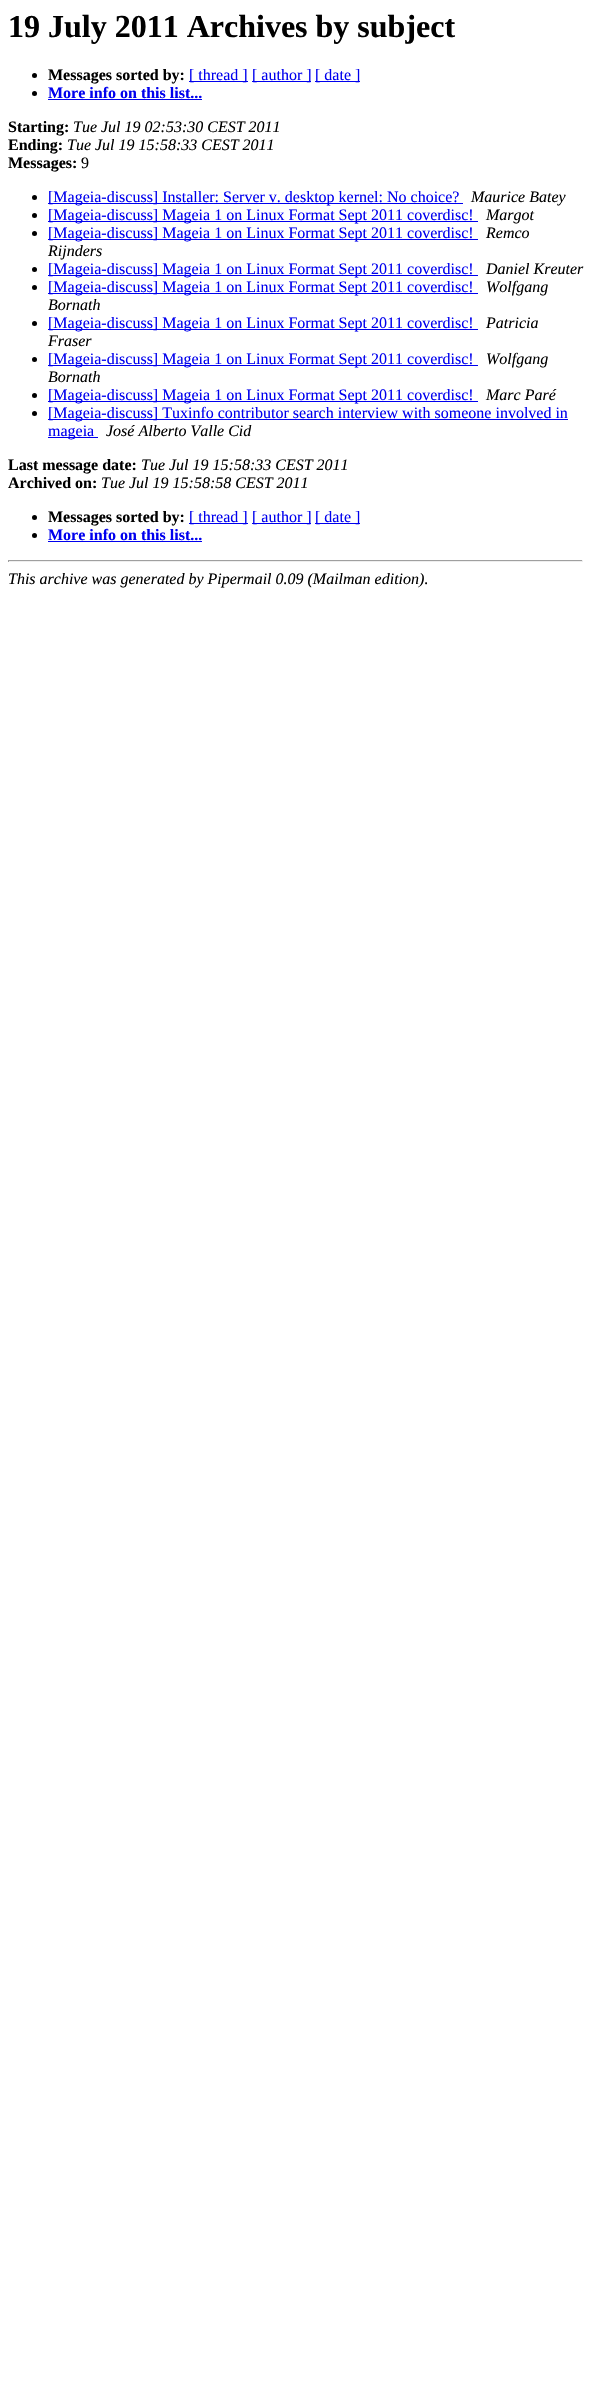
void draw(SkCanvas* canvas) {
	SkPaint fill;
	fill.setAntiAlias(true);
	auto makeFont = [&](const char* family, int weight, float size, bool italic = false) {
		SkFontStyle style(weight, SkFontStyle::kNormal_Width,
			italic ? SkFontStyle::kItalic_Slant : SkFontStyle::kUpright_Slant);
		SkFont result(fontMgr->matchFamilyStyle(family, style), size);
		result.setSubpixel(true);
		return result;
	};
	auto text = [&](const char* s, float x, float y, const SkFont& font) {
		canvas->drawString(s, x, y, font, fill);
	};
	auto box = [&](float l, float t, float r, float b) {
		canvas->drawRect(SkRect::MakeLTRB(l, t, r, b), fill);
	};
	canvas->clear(0xFFFFFFFF);
	fill.setColor(0xFF000000);
	canvas->drawCircle(34.5f, 75.5f, 2.5f, fill);
	fill.setColor(0xFF0000EE);
	box(189, 81, 248, 82);
	box(252, 81, 311, 82);
	box(315, 81, 360, 82);
	fill.setColor(0xFF000000);
	canvas->drawCircle(34.5f, 93.5f, 2.5f, fill);
	fill.setColor(0xFF0000EE);
	box(48, 99, 202, 100);
	fill.setColor(0xFF000000);
	canvas->drawCircle(34.5f, 197.5f, 2.5f, fill);
	fill.setColor(0xFF0000EE);
	box(48, 203, 463, 204);
	fill.setColor(0xFF000000);
	canvas->drawCircle(34.5f, 215.5f, 2.5f, fill);
	fill.setColor(0xFF0000EE);
	box(48, 221, 478, 222);
	fill.setColor(0xFF000000);
	canvas->drawCircle(34.5f, 233.5f, 2.5f, fill);
	fill.setColor(0xFF0000EE);
	box(48, 239, 478, 240);
	fill.setColor(0xFF000000);
	canvas->drawCircle(34.5f, 269.5f, 2.5f, fill);
	fill.setColor(0xFF0000EE);
	box(48, 275, 478, 276);
	fill.setColor(0xFF000000);
	canvas->drawCircle(34.5f, 287.5f, 2.5f, fill);
	fill.setColor(0xFF0000EE);
	box(48, 293, 478, 294);
	fill.setColor(0xFF000000);
	canvas->drawCircle(34.5f, 323.5f, 2.5f, fill);
	fill.setColor(0xFF0000EE);
	box(48, 329, 478, 330);
	fill.setColor(0xFF000000);
	canvas->drawCircle(34.5f, 359.5f, 2.5f, fill);
	fill.setColor(0xFF0000EE);
	box(48, 365, 478, 366);
	fill.setColor(0xFF000000);
	canvas->drawCircle(34.5f, 395.5f, 2.5f, fill);
	fill.setColor(0xFF0000EE);
	box(48, 401, 478, 402);
	fill.setColor(0xFF000000);
	canvas->drawCircle(34.5f, 413.5f, 2.5f, fill);
	fill.setColor(0xFF0000EE);
	box(48, 419, 568, 420);
	box(48, 437, 98, 438);
	fill.setColor(0xFF000000);
	canvas->drawCircle(34.5f, 517.5f, 2.5f, fill);
	fill.setColor(0xFF0000EE);
	box(189, 523, 248, 524);
	box(252, 523, 311, 524);
	box(315, 523, 360, 524);
	fill.setColor(0xFF000000);
	canvas->drawCircle(34.5f, 535.5f, 2.5f, fill);
	fill.setColor(0xFF0000EE);
	box(48, 541, 202, 542);
	fill.setColor(0xFF9F9F9F);
	box(8, 560, 583, 561);
	fill.setColor(0xFFEEEEEE);
	box(582, 560, 583, 562);
	box(8, 561, 583, 562);
	fill.setColor(0xFF9F9F9F);
	box(8, 560, 9, 562);
	auto font1 = makeFont("Liberation Serif", 700, 32);
	fill.setColor(0xFF000000);
	text("19 July 2011 Archives by subject", 8, 37, font1);
	auto font2 = makeFont("Liberation Serif", 700, 16);
	text("Messages sorted by:", 48, 80, font2);
	auto font3 = makeFont("Liberation Serif", 400, 16);
	fill.setColor(0xFF0000EE);
	text("[ thread ]", 189, 80, font3);
	text("[ author ]", 252, 80, font3);
	text("[ date ]", 315, 80, font3);
	text("More info on this list...", 48, 98, font2);
	fill.setColor(0xFF000000);
	text("Starting:", 8, 132, font2);
	auto font4 = makeFont("Liberation Serif", 400, 16, true);
	text("Tue Jul 19 02:53:30 CEST 2011", 73, 132, font4);
	text("Ending:", 8, 150, font2);
	text("Tue Jul 19 15:58:33 CEST 2011", 67, 150, font4);
	text("Messages:", 8, 168, font2);
	text("9", 81, 168, font3);
	fill.setColor(0xFF0000EE);
	text("[Mageia-discuss] Installer: Server v. desktop kernel: No choice?", 48, 202, font3);
	fill.setColor(0xFF000000);
	text("Maurice Batey", 471, 202, font4);
	fill.setColor(0xFF0000EE);
	text("[Mageia-discuss] Mageia 1 on Linux Format Sept 2011 coverdisc!", 48, 220, font3);
	fill.setColor(0xFF000000);
	text("Margot", 486, 220, font4);
	fill.setColor(0xFF0000EE);
	text("[Mageia-discuss] Mageia 1 on Linux Format Sept 2011 coverdisc!", 48, 238, font3);
	fill.setColor(0xFF000000);
	text("Remco", 486, 238, font4);
	text("Rijnders", 48, 256, font4);
	fill.setColor(0xFF0000EE);
	text("[Mageia-discuss] Mageia 1 on Linux Format Sept 2011 coverdisc!", 48, 274, font3);
	fill.setColor(0xFF000000);
	text("Daniel Kreuter", 486, 274, font4);
	fill.setColor(0xFF0000EE);
	text("[Mageia-discuss] Mageia 1 on Linux Format Sept 2011 coverdisc!", 48, 292, font3);
	fill.setColor(0xFF000000);
	text("Wolfgang", 486, 292, font4);
	text("Bornath", 48, 310, font4);
	fill.setColor(0xFF0000EE);
	text("[Mageia-discuss] Mageia 1 on Linux Format Sept 2011 coverdisc!", 48, 328, font3);
	fill.setColor(0xFF000000);
	text("Patricia", 486, 328, font4);
	text("Fraser", 48, 346, font4);
	fill.setColor(0xFF0000EE);
	text("[Mageia-discuss] Mageia 1 on Linux Format Sept 2011 coverdisc!", 48, 364, font3);
	fill.setColor(0xFF000000);
	text("Wolfgang", 486, 364, font4);
	text("Bornath", 48, 382, font4);
	fill.setColor(0xFF0000EE);
	text("[Mageia-discuss] Mageia 1 on Linux Format Sept 2011 coverdisc!", 48, 400, font3);
	fill.setColor(0xFF000000);
	text("Marc Paré", 486, 400, font4);
	fill.setColor(0xFF0000EE);
	text("[Mageia-discuss] Tuxinfo contributor search interview with someone involved in", 48, 418, font3);
	text("mageia", 48, 436, font3);
	fill.setColor(0xFF000000);
	text("José Alberto Valle Cid", 106, 436, font4);
	text("Last message date:", 8, 470, font2);
	text("Tue Jul 19 15:58:33 CEST 2011", 141, 470, font4);
	text("Archived on:", 8, 488, font2);
	text("Tue Jul 19 15:58:58 CEST 2011", 101, 488, font4);
	text("Messages sorted by:", 48, 522, font2);
	fill.setColor(0xFF0000EE);
	text("[ thread ]", 189, 522, font3);
	text("[ author ]", 252, 522, font3);
	text("[ date ]", 315, 522, font3);
	text("More info on this list...", 48, 540, font2);
	fill.setColor(0xFF000000);
	text("This archive was generated by Pipermail 0.09 (Mailman edition).", 8, 584, font4);
}
